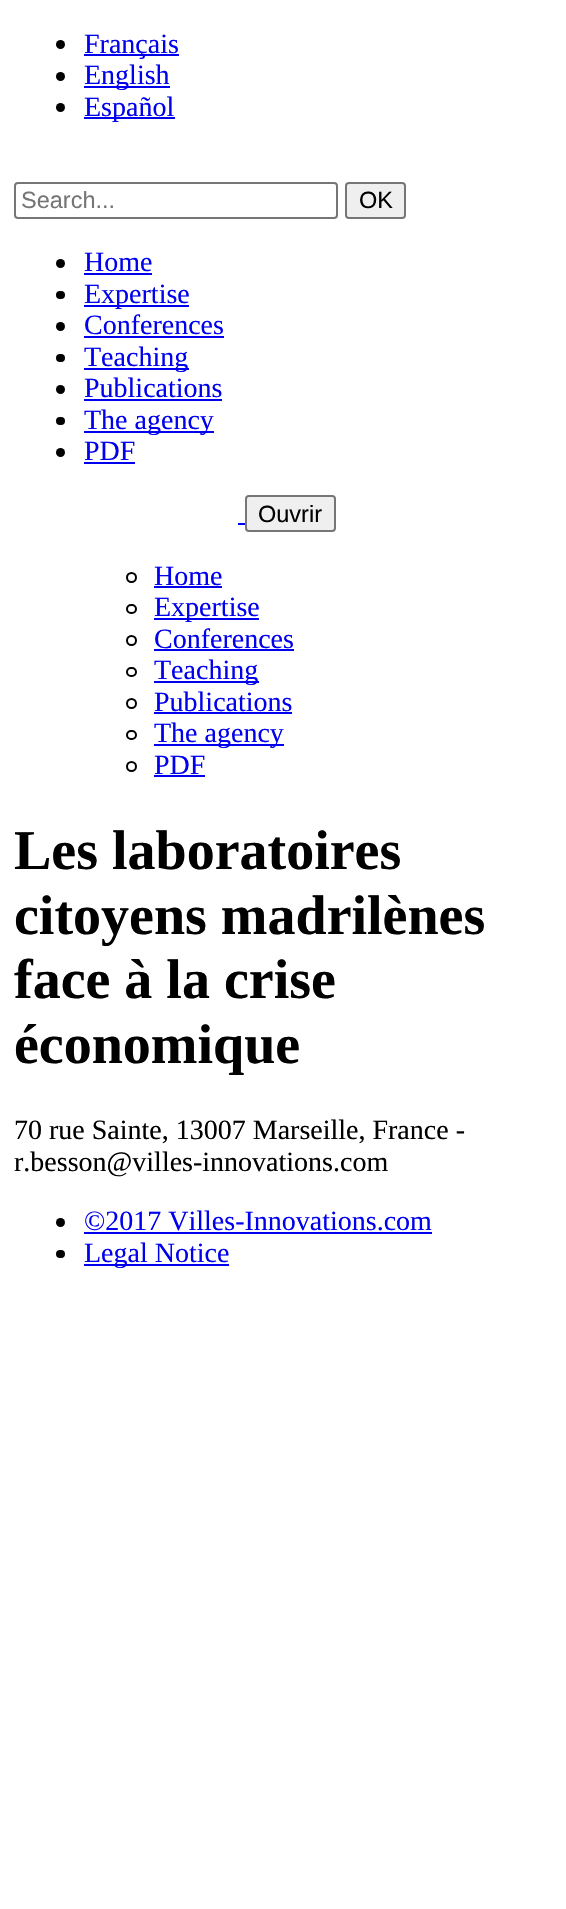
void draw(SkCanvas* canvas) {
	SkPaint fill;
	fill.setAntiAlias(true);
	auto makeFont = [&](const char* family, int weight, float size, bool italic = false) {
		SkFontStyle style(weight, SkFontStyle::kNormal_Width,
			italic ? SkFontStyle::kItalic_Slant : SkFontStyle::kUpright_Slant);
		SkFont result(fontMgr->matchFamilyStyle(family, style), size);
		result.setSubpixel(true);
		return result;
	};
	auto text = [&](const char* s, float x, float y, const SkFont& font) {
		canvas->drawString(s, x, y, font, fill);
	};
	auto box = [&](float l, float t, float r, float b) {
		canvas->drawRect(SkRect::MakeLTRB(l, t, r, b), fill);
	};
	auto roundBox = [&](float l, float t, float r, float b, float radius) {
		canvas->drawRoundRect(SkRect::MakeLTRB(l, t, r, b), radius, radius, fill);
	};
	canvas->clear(0xFFFFFFFF);
	fill.setColor(0xFF000000);
	canvas->drawCircle(60.5f, 44.5f, 4.5f, fill);
	fill.setColor(0xFF0000EE);
	box(84, 54, 179, 56);
	fill.setColor(0xFF000000);
	canvas->drawCircle(60.5f, 76.5f, 4.5f, fill);
	fill.setColor(0xFF0000EE);
	box(84, 86, 170, 88);
	fill.setColor(0xFF000000);
	canvas->drawCircle(60.5f, 107.5f, 4.5f, fill);
	fill.setColor(0xFF0000EE);
	box(84, 117, 175, 119);
	fill.setStyle(SkPaint::kStroke_Style);
	fill.setStrokeWidth(2);
	fill.setColor(0xFF767676);
	canvas->drawRoundRect(SkRect::MakeLTRB(15, 183, 337, 218), 3, 3, fill);
	fill.setStyle(SkPaint::kFill_Style);
	fill.setColor(0xFFEFEFEF);
	canvas->drawRoundRect(SkRect::MakeLTRB(346, 183, 405, 218), 3, 3, fill);
	fill.setStyle(SkPaint::kStroke_Style);
	fill.setColor(0xFF767676);
	canvas->drawRoundRect(SkRect::MakeLTRB(346, 183, 405, 218), 3, 3, fill);
	fill.setStyle(SkPaint::kFill_Style);
	fill.setColor(0xFF000000);
	canvas->drawCircle(60.5f, 263.5f, 4.5f, fill);
	fill.setColor(0xFF0000EE);
	box(84, 273, 152, 275);
	fill.setColor(0xFF000000);
	roundBox(56, 291, 65, 299, 4);
	fill.setColor(0xFF0000EE);
	box(84, 305, 189, 307);
	fill.setColor(0xFF000000);
	canvas->drawCircle(60.5f, 326.5f, 4.5f, fill);
	fill.setColor(0xFF0000EE);
	box(84, 336, 224, 338);
	fill.setColor(0xFF000000);
	roundBox(56, 354, 65, 362, 4);
	fill.setColor(0xFF0000EE);
	box(84, 368, 189, 370);
	fill.setColor(0xFF000000);
	canvas->drawCircle(60.5f, 389.5f, 4.5f, fill);
	fill.setColor(0xFF0000EE);
	box(84, 399, 222, 401);
	fill.setColor(0xFF000000);
	roundBox(56, 417, 65, 425, 4);
	fill.setColor(0xFF0000EE);
	box(84, 431, 214, 433);
	fill.setColor(0xFF000000);
	canvas->drawCircle(60.5f, 452.5f, 4.5f, fill);
	fill.setColor(0xFF0000EE);
	box(84, 462, 135, 464);
	fill.setColor(0xFFEFEFEF);
	canvas->drawRoundRect(SkRect::MakeLTRB(246, 496, 335, 531), 3, 3, fill);
	fill.setStyle(SkPaint::kStroke_Style);
	fill.setColor(0xFF767676);
	canvas->drawRoundRect(SkRect::MakeLTRB(246, 496, 335, 531), 3, 3, fill);
	fill.setStyle(SkPaint::kFill_Style);
	fill.setColor(0xFF0000EE);
	box(238, 523, 245, 525);
	fill.setStyle(SkPaint::kStroke_Style);
	fill.setColor(0xFF000000);
	canvas->drawCircle(131.5f, 577.5f, 4.5f, fill);
	fill.setStyle(SkPaint::kFill_Style);
	fill.setColor(0xFF0000EE);
	box(154, 586, 222, 588);
	fill.setStyle(SkPaint::kStroke_Style);
	fill.setColor(0xFF000000);
	canvas->drawRoundRect(SkRect::MakeLTRB(127, 605, 136, 613), 4, 4, fill);
	fill.setStyle(SkPaint::kFill_Style);
	fill.setColor(0xFF0000EE);
	box(154, 618, 259, 620);
	fill.setStyle(SkPaint::kStroke_Style);
	fill.setColor(0xFF000000);
	canvas->drawCircle(131.5f, 640.5f, 4.5f, fill);
	fill.setStyle(SkPaint::kFill_Style);
	fill.setColor(0xFF0000EE);
	box(154, 649, 294, 651);
	fill.setStyle(SkPaint::kStroke_Style);
	fill.setColor(0xFF000000);
	canvas->drawRoundRect(SkRect::MakeLTRB(127, 668, 136, 676), 4, 4, fill);
	fill.setStyle(SkPaint::kFill_Style);
	fill.setColor(0xFF0000EE);
	box(154, 681, 259, 683);
	fill.setStyle(SkPaint::kStroke_Style);
	fill.setColor(0xFF000000);
	canvas->drawCircle(131.5f, 703.5f, 4.5f, fill);
	fill.setStyle(SkPaint::kFill_Style);
	fill.setColor(0xFF0000EE);
	box(154, 712, 292, 714);
	fill.setStyle(SkPaint::kStroke_Style);
	fill.setColor(0xFF000000);
	canvas->drawRoundRect(SkRect::MakeLTRB(127, 731, 136, 739), 4, 4, fill);
	fill.setStyle(SkPaint::kFill_Style);
	fill.setColor(0xFF0000EE);
	box(154, 744, 284, 746);
	fill.setStyle(SkPaint::kStroke_Style);
	fill.setColor(0xFF000000);
	canvas->drawCircle(131.5f, 766.5f, 4.5f, fill);
	fill.setStyle(SkPaint::kFill_Style);
	fill.setColor(0xFF0000EE);
	box(154, 775, 205, 777);
	fill.setColor(0xFF000000);
	canvas->drawCircle(60.5f, 1222.5f, 4.5f, fill);
	fill.setColor(0xFF0000EE);
	box(84, 1232, 432, 1234);
	fill.setColor(0xFF000000);
	roundBox(56, 1250, 65, 1258, 4);
	fill.setColor(0xFF0000EE);
	box(84, 1264, 229, 1266);
	auto font1 = makeFont("Liberation Serif", 400, 28);
	text("Français", 84, 53, font1);
	text("English", 84, 84, font1);
	text("Español", 84, 116, font1);
	auto font2 = makeFont("Liberation Sans", 400, 23.5f);
	fill.setColor(0xFF757575);
	text("Search...", 21, 208, font2);
	fill.setColor(0xFF000000);
	text("OK", 359, 208, font2);
	fill.setColor(0xFF0000EE);
	text("Home", 84, 271, font1);
	text("Expertise", 84, 303, font1);
	text("Conferences", 84, 334, font1);
	text("Teaching", 84, 366, font1);
	text("Publications", 84, 397, font1);
	text("The agency", 84, 429, font1);
	text("PDF", 84, 460, font1);
	fill.setColor(0xFF000000);
	text("Ouvrir", 258, 522, font2);
	fill.setColor(0xFF0000EE);
	text("Home", 154, 585, font1);
	text("Expertise", 154, 616, font1);
	text("Conferences", 154, 648, font1);
	text("Teaching", 154, 679, font1);
	text("Publications", 154, 711, font1);
	text("The agency", 154, 742, font1);
	text("PDF", 154, 774, font1);
	auto font3 = makeFont("Liberation Serif", 700, 56);
	fill.setColor(0xFF000000);
	text("Les laboratoires", 14, 869, font3);
	text("citoyens madrilènes", 14, 934, font3);
	text("face à la crise", 14, 998, font3);
	text("économique", 14, 1063, font3);
	text("70 rue Sainte, 13007 Marseille, France -", 14, 1139, font1);
	text("r.besson@villes-innovations.com", 14, 1171, font1);
	fill.setColor(0xFF0000EE);
	text("©2017 Villes-Innovations.com", 84, 1230, font1);
	text("Legal Notice", 84, 1262, font1);
}
